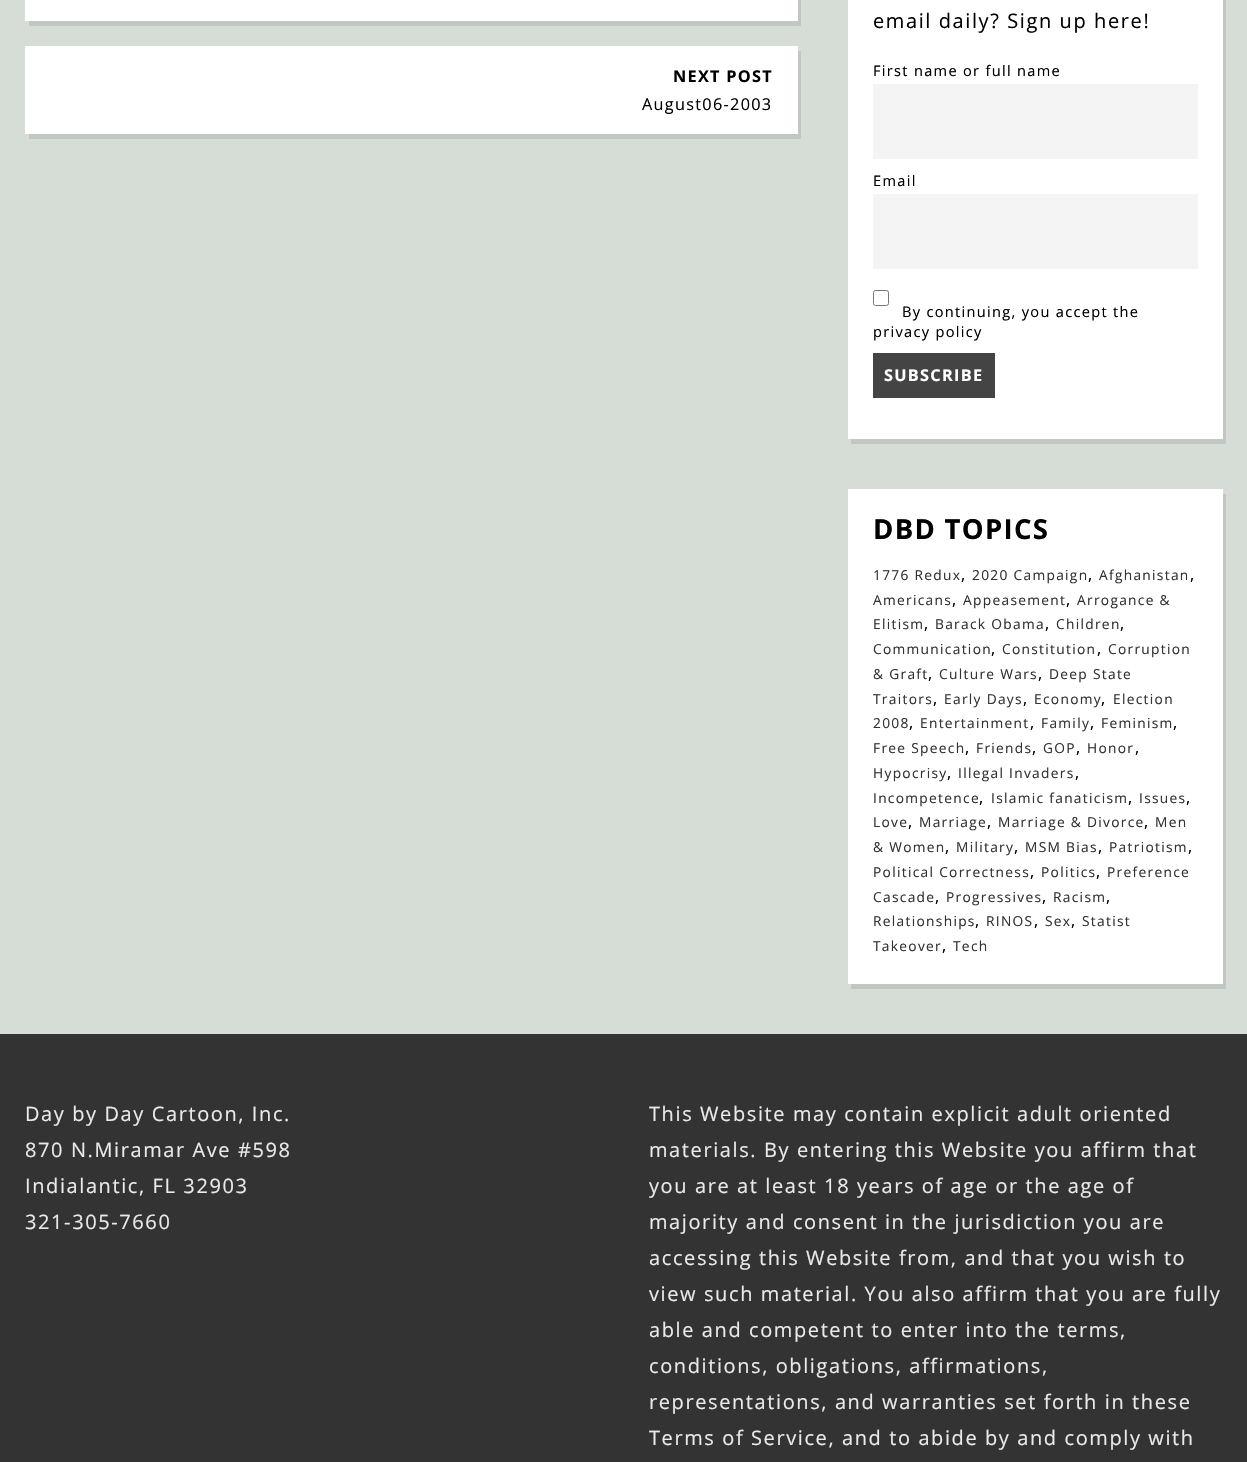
void draw(SkCanvas* canvas) {
	SkPaint fill;
	fill.setAntiAlias(true);
	auto makeFont = [&](const char* family, int weight, float size, bool italic = false) {
		SkFontStyle style(weight, SkFontStyle::kNormal_Width,
			italic ? SkFontStyle::kItalic_Slant : SkFontStyle::kUpright_Slant);
		SkFont result(fontMgr->matchFamilyStyle(family, style), size);
		result.setSubpixel(true);
		return result;
	};
	auto spacedText = [&](const char* s, float x, float y, const SkFont& font, const SkPaint& ink, float letter, float word) {
		std::vector<SkGlyphID> glyphs(font.countText(s, strlen(s), SkTextEncoding::kUTF8));
		std::vector<float> xs(glyphs.size());
		font.textToGlyphs(s, strlen(s), SkTextEncoding::kUTF8, glyphs);
		font.getXPos(glyphs, xs, x);
		float extra = 0;
		for (size_t i = 0; i < glyphs.size(); i++) {
			xs[i] += extra;
			extra += letter + word * (glyphs[i] == font.unicharToGlyph(' '));
		}
		canvas->drawTextBlob(SkTextBlob::MakeFromPosHGlyphs(glyphs, xs, y, font), 0, 0, ink);
	};
	auto box = [&](float l, float t, float r, float b) {
		canvas->drawRect(SkRect::MakeLTRB(l, t, r, b), fill);
	};
	canvas->clear(0xFFD6DDD6);
	fill.setColor(0xFFC1C7C1);
	canvas->drawPath(SkPathBuilder().moveTo(29, 21).lineTo(29, 26).lineTo(801, 26).lineTo(801, -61).lineTo(798, -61).lineTo(798, 21).close().detach(), fill);
	fill.setColor(0xFFFFFFFF);
	box(25, 0, 798, 21);
	fill.setColor(0xFFC1C7C1);
	canvas->drawPath(SkPathBuilder().moveTo(29, 134).lineTo(29, 139).lineTo(801, 139).lineTo(801, 51).lineTo(798, 51).lineTo(798, 134).close().detach(), fill);
	fill.setColor(0xFFFFFFFF);
	box(25, 46, 798, 134);
	fill.setColor(0xFFC1C7C1);
	canvas->drawPath(SkPathBuilder().moveTo(851, 439).lineTo(851, 444).lineTo(1226, 444).lineTo(1226, -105).lineTo(1222, -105).lineTo(1222, 439).close().detach(), fill);
	fill.setColor(0xFFFFFFFF);
	box(848, 0, 1223, 439);
	fill.setColor(0xFFF4F4F4);
	box(873, 84, 1198, 159);
	box(873, 194, 1198, 269);
	fill.setStyle(SkPaint::kStroke_Style);
	fill.setStrokeWidth(1);
	fill.setColor(0xFF767676);
	canvas->drawRoundRect(SkRect::MakeLTRB(873.5f, 290.5f, 888.5f, 305.5f), 2, 2, fill);
	fill.setStyle(SkPaint::kFill_Style);
	fill.setColor(0xFF444444);
	box(873, 353, 995, 398);
	fill.setColor(0xFFC1C7C1);
	canvas->drawPath(SkPathBuilder().moveTo(851, 984).lineTo(851, 989).lineTo(1226, 989).lineTo(1226, 494).lineTo(1222, 494).lineTo(1222, 984).close().detach(), fill);
	fill.setColor(0xFFFFFFFF);
	box(848, 489, 1223, 984);
	fill.setColor(0xFF333333);
	box(0, 1034, 1247, 1462);
	auto font1 = makeFont("Open Sans", 700, 16.25f);
	fill.setColor(0xFF000000);
	spacedText("NEXT POST", 673, 82, font1, fill, 1.3f, 0);
	auto font2 = makeFont("Open Sans", 400, 16.25f);
	spacedText("August06-2003", 642, 110, font2, fill, 1.3f, 0);
	auto font3 = makeFont("Open Sans", 400, 20);
	spacedText("email daily? Sign up here!", 873, 28, font3, fill, 1.6f, 0);
	auto font4 = makeFont("Open Sans", 400, 14.6f);
	spacedText("First name or full name", 873, 76, font4, fill, 1.3f, 0);
	spacedText("Email", 873, 186, font4, fill, 1.3f, 0);
	spacedText("By continuing, you accept the", 902, 317, font4, fill, 1.3f, 0);
	spacedText("privacy policy", 873, 337, font4, fill, 1.3f, 0);
	fill.setColor(0xFFFFFFFF);
	spacedText("SUBSCRIBE", 884, 381, font1, fill, 1.3f, 0);
	auto font5 = makeFont("Open Sans", 700, 27.5f);
	fill.setColor(0xFF000000);
	spacedText("DBD TOPICS", 873, 539, font5, fill, 1.3f, 0);
	auto font6 = makeFont("Open Sans", 400, 13.75f);
	fill.setColor(0xFF333333);
	spacedText("1776 Redux", 873, 580, font6, fill, 1.3f, 0);
	fill.setColor(0xFF000000);
	spacedText(",", 961, 580, font2, fill, 1.3f, 0);
	fill.setColor(0xFF333333);
	spacedText("2020 Campaign", 972, 580, font6, fill, 1.3f, 0);
	fill.setColor(0xFF000000);
	spacedText(",", 1088, 580, font2, fill, 1.3f, 0);
	fill.setColor(0xFF333333);
	spacedText("Afghanistan", 1099, 580, font6, fill, 1.3f, 0);
	fill.setColor(0xFF000000);
	spacedText(",", 1190, 580, font2, fill, 1.3f, 0);
	fill.setColor(0xFF333333);
	spacedText("Americans", 873, 605, font6, fill, 1.3f, 0);
	fill.setColor(0xFF000000);
	spacedText(",", 952, 605, font2, fill, 1.3f, 0);
	fill.setColor(0xFF333333);
	spacedText("Appeasement", 963, 605, font6, fill, 1.3f, 0);
	fill.setColor(0xFF000000);
	spacedText(",", 1066, 605, font2, fill, 1.3f, 0);
	fill.setColor(0xFF333333);
	spacedText("Arrogance &", 1077, 605, font6, fill, 1.3f, 0);
	spacedText("Elitism", 873, 629, font6, fill, 1.3f, 0);
	fill.setColor(0xFF000000);
	spacedText(",", 924, 629, font2, fill, 1.3f, 0);
	fill.setColor(0xFF333333);
	spacedText("Barack Obama", 935, 629, font6, fill, 1.3f, 0);
	fill.setColor(0xFF000000);
	spacedText(",", 1045, 629, font2, fill, 1.3f, 0);
	fill.setColor(0xFF333333);
	spacedText("Children", 1056, 629, font6, fill, 1.3f, 0);
	fill.setColor(0xFF000000);
	spacedText(",", 1120, 629, font2, fill, 1.3f, 0);
	fill.setColor(0xFF333333);
	spacedText("Communication", 873, 654, font6, fill, 1.3f, 0);
	fill.setColor(0xFF000000);
	spacedText(",", 991, 654, font2, fill, 1.3f, 0);
	fill.setColor(0xFF333333);
	spacedText("Constitution", 1002, 654, font6, fill, 1.3f, 0);
	fill.setColor(0xFF000000);
	spacedText(",", 1097, 654, font2, fill, 1.3f, 0);
	fill.setColor(0xFF333333);
	spacedText("Corruption", 1108, 654, font6, fill, 1.3f, 0);
	spacedText("& Graft", 873, 679, font6, fill, 1.3f, 0);
	fill.setColor(0xFF000000);
	spacedText(",", 928, 679, font2, fill, 1.3f, 0);
	fill.setColor(0xFF333333);
	spacedText("Culture Wars", 939, 679, font6, fill, 1.3f, 0);
	fill.setColor(0xFF000000);
	spacedText(",", 1038, 679, font2, fill, 1.3f, 0);
	fill.setColor(0xFF333333);
	spacedText("Deep State", 1049, 679, font6, fill, 1.3f, 0);
	spacedText("Traitors", 873, 704, font6, fill, 1.3f, 0);
	fill.setColor(0xFF000000);
	spacedText(",", 933, 704, font2, fill, 1.3f, 0);
	fill.setColor(0xFF333333);
	spacedText("Early Days", 944, 704, font6, fill, 1.3f, 0);
	fill.setColor(0xFF000000);
	spacedText(",", 1023, 704, font2, fill, 1.3f, 0);
	fill.setColor(0xFF333333);
	spacedText("Economy", 1034, 704, font6, fill, 1.3f, 0);
	fill.setColor(0xFF000000);
	spacedText(",", 1101, 704, font2, fill, 1.3f, 0);
	fill.setColor(0xFF333333);
	spacedText("Election", 1113, 704, font6, fill, 1.3f, 0);
	spacedText("2008", 873, 728, font6, fill, 1.3f, 0);
	fill.setColor(0xFF000000);
	spacedText(",", 909, 728, font2, fill, 1.3f, 0);
	fill.setColor(0xFF333333);
	spacedText("Entertainment", 920, 728, font6, fill, 1.3f, 0);
	fill.setColor(0xFF000000);
	spacedText(",", 1030, 728, font2, fill, 1.3f, 0);
	fill.setColor(0xFF333333);
	spacedText("Family", 1041, 728, font6, fill, 1.3f, 0);
	fill.setColor(0xFF000000);
	spacedText(",", 1090, 728, font2, fill, 1.3f, 0);
	fill.setColor(0xFF333333);
	spacedText("Feminism", 1101, 728, font6, fill, 1.3f, 0);
	fill.setColor(0xFF000000);
	spacedText(",", 1173, 728, font2, fill, 1.3f, 0);
	fill.setColor(0xFF333333);
	spacedText("Free Speech", 873, 753, font6, fill, 1.3f, 0);
	fill.setColor(0xFF000000);
	spacedText(",", 965, 753, font2, fill, 1.3f, 0);
	fill.setColor(0xFF333333);
	spacedText("Friends", 976, 753, font6, fill, 1.3f, 0);
	fill.setColor(0xFF000000);
	spacedText(",", 1032, 753, font2, fill, 1.3f, 0);
	fill.setColor(0xFF333333);
	spacedText("GOP", 1043, 753, font6, fill, 1.3f, 0);
	fill.setColor(0xFF000000);
	spacedText(",", 1076, 753, font2, fill, 1.3f, 0);
	fill.setColor(0xFF333333);
	spacedText("Honor", 1087, 753, font6, fill, 1.3f, 0);
	fill.setColor(0xFF000000);
	spacedText(",", 1135, 753, font2, fill, 1.3f, 0);
	fill.setColor(0xFF333333);
	spacedText("Hypocrisy", 873, 778, font6, fill, 1.3f, 0);
	fill.setColor(0xFF000000);
	spacedText(",", 947, 778, font2, fill, 1.3f, 0);
	fill.setColor(0xFF333333);
	spacedText("Illegal Invaders", 958, 778, font6, fill, 1.3f, 0);
	fill.setColor(0xFF000000);
	spacedText(",", 1075, 778, font2, fill, 1.3f, 0);
	fill.setColor(0xFF333333);
	spacedText("Incompetence", 873, 803, font6, fill, 1.3f, 0);
	fill.setColor(0xFF000000);
	spacedText(",", 979, 803, font2, fill, 1.3f, 0);
	fill.setColor(0xFF333333);
	spacedText("Islamic fanaticism", 991, 803, font6, fill, 1.3f, 0);
	fill.setColor(0xFF000000);
	spacedText(",", 1128, 803, font2, fill, 1.3f, 0);
	fill.setColor(0xFF333333);
	spacedText("Issues", 1139, 803, font6, fill, 1.3f, 0);
	fill.setColor(0xFF000000);
	spacedText(",", 1186, 803, font2, fill, 1.3f, 0);
	fill.setColor(0xFF333333);
	spacedText("Love", 873, 827, font6, fill, 1.3f, 0);
	fill.setColor(0xFF000000);
	spacedText(",", 908, 827, font2, fill, 1.3f, 0);
	fill.setColor(0xFF333333);
	spacedText("Marriage", 919, 827, font6, fill, 1.3f, 0);
	fill.setColor(0xFF000000);
	spacedText(",", 987, 827, font2, fill, 1.3f, 0);
	fill.setColor(0xFF333333);
	spacedText("Marriage & Divorce", 998, 827, font6, fill, 1.3f, 0);
	fill.setColor(0xFF000000);
	spacedText(",", 1144, 827, font2, fill, 1.3f, 0);
	fill.setColor(0xFF333333);
	spacedText("Men", 1155, 827, font6, fill, 1.3f, 0);
	spacedText("& Women", 873, 852, font6, fill, 1.3f, 0);
	fill.setColor(0xFF000000);
	spacedText(",", 945, 852, font2, fill, 1.3f, 0);
	fill.setColor(0xFF333333);
	spacedText("Military", 956, 852, font6, fill, 1.3f, 0);
	fill.setColor(0xFF000000);
	spacedText(",", 1014, 852, font2, fill, 1.3f, 0);
	fill.setColor(0xFF333333);
	spacedText("MSM Bias", 1025, 852, font6, fill, 1.3f, 0);
	fill.setColor(0xFF000000);
	spacedText(",", 1098, 852, font2, fill, 1.3f, 0);
	fill.setColor(0xFF333333);
	spacedText("Patriotism", 1109, 852, font6, fill, 1.3f, 0);
	fill.setColor(0xFF000000);
	spacedText(",", 1188, 852, font2, fill, 1.3f, 0);
	fill.setColor(0xFF333333);
	spacedText("Political Correctness", 873, 877, font6, fill, 1.3f, 0);
	fill.setColor(0xFF000000);
	spacedText(",", 1030, 877, font2, fill, 1.3f, 0);
	fill.setColor(0xFF333333);
	spacedText("Politics", 1041, 877, font6, fill, 1.3f, 0);
	fill.setColor(0xFF000000);
	spacedText(",", 1096, 877, font2, fill, 1.3f, 0);
	fill.setColor(0xFF333333);
	spacedText("Preference", 1107, 877, font6, fill, 1.3f, 0);
	spacedText("Cascade", 873, 902, font6, fill, 1.3f, 0);
	fill.setColor(0xFF000000);
	spacedText(",", 935, 902, font2, fill, 1.3f, 0);
	fill.setColor(0xFF333333);
	spacedText("Progressives", 946, 902, font6, fill, 1.3f, 0);
	fill.setColor(0xFF000000);
	spacedText(",", 1042, 902, font2, fill, 1.3f, 0);
	fill.setColor(0xFF333333);
	spacedText("Racism", 1053, 902, font6, fill, 1.3f, 0);
	fill.setColor(0xFF000000);
	spacedText(",", 1106, 902, font2, fill, 1.3f, 0);
	fill.setColor(0xFF333333);
	spacedText("Relationships", 873, 926, font6, fill, 1.3f, 0);
	fill.setColor(0xFF000000);
	spacedText(",", 975, 926, font2, fill, 1.3f, 0);
	fill.setColor(0xFF333333);
	spacedText("RINOS", 986, 926, font6, fill, 1.3f, 0);
	fill.setColor(0xFF000000);
	spacedText(",", 1034, 926, font2, fill, 1.3f, 0);
	fill.setColor(0xFF333333);
	spacedText("Sex", 1045, 926, font6, fill, 1.3f, 0);
	fill.setColor(0xFF000000);
	spacedText(",", 1071, 926, font2, fill, 1.3f, 0);
	fill.setColor(0xFF333333);
	spacedText("Statist", 1082, 926, font6, fill, 1.3f, 0);
	spacedText("Takeover", 873, 951, font6, fill, 1.3f, 0);
	fill.setColor(0xFF000000);
	spacedText(",", 942, 951, font2, fill, 1.3f, 0);
	fill.setColor(0xFF333333);
	spacedText("Tech", 953, 951, font6, fill, 1.3f, 0);
	fill.setColor(0xFFEAEAEA);
	spacedText("Day by Day Cartoon, Inc.", 25, 1121, font3, fill, 1.6f, 0);
	spacedText("870 N.Miramar Ave #598", 25, 1157, font3, fill, 1.6f, 0);
	spacedText("Indialantic, FL 32903", 25, 1193, font3, fill, 1.6f, 0);
	spacedText("321-305-7660", 25, 1229, font3, fill, 1.6f, 0);
	spacedText("This Website may contain explicit adult oriented", 649, 1121, font3, fill, 1.6f, 0);
	spacedText("materials. By entering this Website you affirm that", 649, 1157, font3, fill, 1.6f, 0);
	spacedText("you are at least 18 years of age or the age of", 649, 1193, font3, fill, 1.6f, 0);
	spacedText("majority and consent in the jurisdiction you are", 649, 1229, font3, fill, 1.6f, 0);
	spacedText("accessing this Website from, and that you wish to", 649, 1265, font3, fill, 1.6f, 0);
	spacedText("view such material. You also affirm that you are fully", 649, 1301, font3, fill, 1.6f, 0);
	spacedText("able and competent to enter into the terms,", 649, 1337, font3, fill, 1.6f, 0);
	spacedText("conditions, obligations, affirmations,", 649, 1373, font3, fill, 1.6f, 0);
	spacedText("representations, and warranties set forth in these", 649, 1409, font3, fill, 1.6f, 0);
	spacedText("Terms of Service, and to abide by and comply with", 649, 1445, font3, fill, 1.6f, 0);
}
